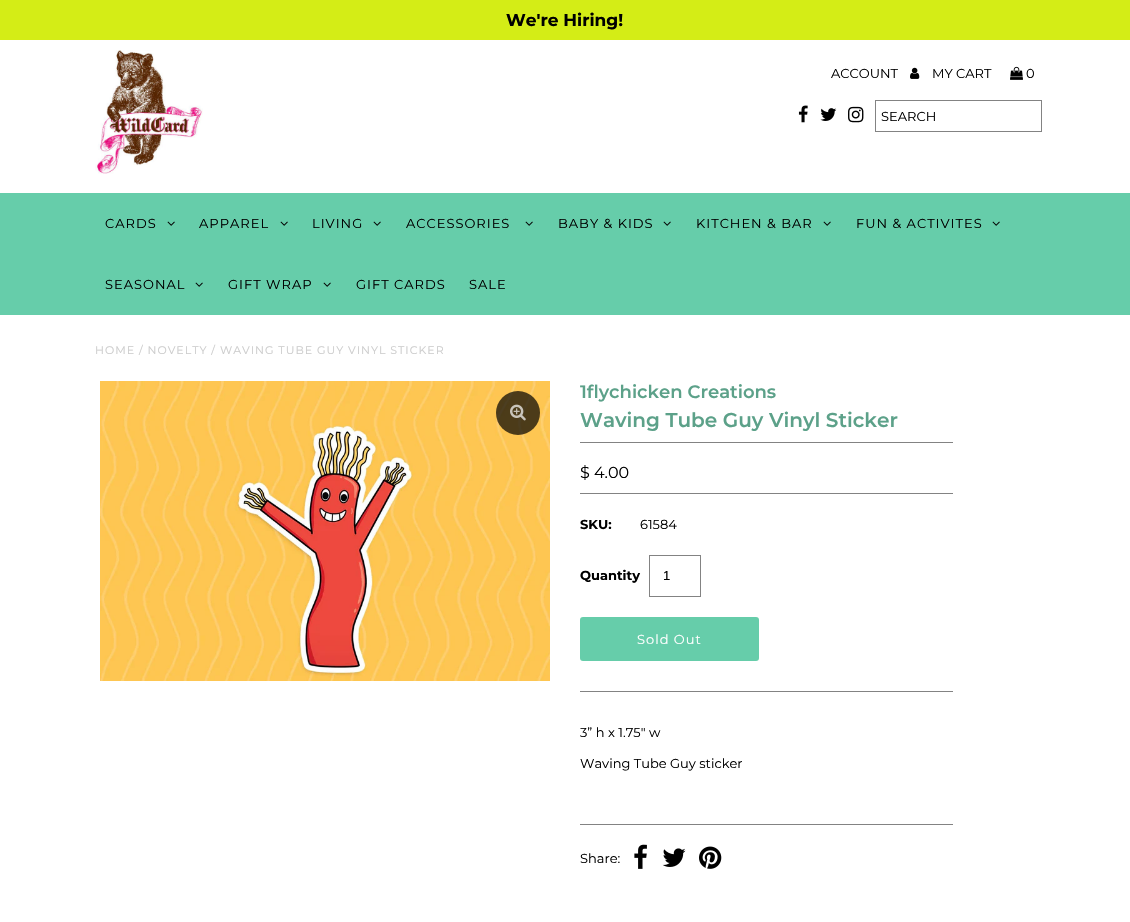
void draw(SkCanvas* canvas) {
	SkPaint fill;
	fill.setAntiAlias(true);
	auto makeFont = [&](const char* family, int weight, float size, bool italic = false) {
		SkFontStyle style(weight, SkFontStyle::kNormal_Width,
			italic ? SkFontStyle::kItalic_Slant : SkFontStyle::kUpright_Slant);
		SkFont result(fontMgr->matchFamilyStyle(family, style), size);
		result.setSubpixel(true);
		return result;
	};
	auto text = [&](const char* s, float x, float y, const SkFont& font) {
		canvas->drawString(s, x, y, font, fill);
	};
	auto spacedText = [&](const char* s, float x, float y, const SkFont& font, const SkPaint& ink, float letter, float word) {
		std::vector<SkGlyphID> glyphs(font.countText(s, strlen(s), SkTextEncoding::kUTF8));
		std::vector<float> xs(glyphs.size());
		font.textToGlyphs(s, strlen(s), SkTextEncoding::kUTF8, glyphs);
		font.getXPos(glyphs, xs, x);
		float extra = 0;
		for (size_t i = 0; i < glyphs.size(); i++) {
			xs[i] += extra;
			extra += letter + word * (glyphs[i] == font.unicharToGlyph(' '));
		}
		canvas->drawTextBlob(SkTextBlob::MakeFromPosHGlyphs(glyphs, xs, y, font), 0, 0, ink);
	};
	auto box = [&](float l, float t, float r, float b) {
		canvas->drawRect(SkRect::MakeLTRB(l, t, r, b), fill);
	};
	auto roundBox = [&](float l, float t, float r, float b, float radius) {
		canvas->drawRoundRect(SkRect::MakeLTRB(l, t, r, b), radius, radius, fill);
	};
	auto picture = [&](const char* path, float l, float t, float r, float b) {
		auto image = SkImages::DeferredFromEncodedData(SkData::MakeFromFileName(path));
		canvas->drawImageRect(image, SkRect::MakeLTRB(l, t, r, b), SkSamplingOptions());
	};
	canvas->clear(0xFFFFFFFF);
	fill.setColor(0xFFD4ED16);
	box(0, 0, 1130, 40);
	picture("image0.png", 95, 50, 203, 174);
	picture("image1.png", 910, 67, 920, 79);
	picture("image2.png", 1010, 66, 1023, 80);
	picture("image3.png", 798, 105, 808, 123);
	picture("image4.png", 820, 108, 837, 121);
	picture("image5.png", 848, 106, 864, 123);
	fill.setStyle(SkPaint::kStroke_Style);
	fill.setStrokeWidth(1);
	fill.setColor(0xFF838383);
	canvas->drawRect(SkRect::MakeLTRB(875.5f, 100.5f, 1041.5f, 131.5f), fill);
	fill.setStyle(SkPaint::kFill_Style);
	fill.setColor(0xFF66CDAA);
	box(0, 193, 1130, 315);
	picture("image6.png", 167, 221, 175, 226);
	picture("image6.png", 280, 221, 288, 226);
	picture("image6.png", 373, 221, 381, 226);
	picture("image6.png", 525, 221, 533, 226);
	picture("image6.png", 663, 221, 671, 226);
	picture("image6.png", 823, 221, 831, 226);
	picture("image6.png", 992, 221, 1000, 226);
	picture("image6.png", 195, 282, 203, 287);
	picture("image6.png", 323, 282, 331, 287);
	picture("image7.png", 100, 381, 550, 681);
	fill.setColor(0xB3000000);
	canvas->drawCircle(518, 413, 22, fill);
	picture("image8.png", 510, 404, 526, 421);
	fill.setColor(0xFF838383);
	box(580, 442, 953, 443);
	box(580, 691, 953, 692);
	box(580, 493, 953, 494);
	fill.setStyle(SkPaint::kStroke_Style);
	canvas->drawRect(SkRect::MakeLTRB(649.5f, 555.5f, 700.5f, 596.5f), fill);
	fill.setStyle(SkPaint::kFill_Style);
	fill.setColor(0xFF66CDAA);
	roundBox(580, 617, 759, 661, 3);
	fill.setColor(0xFF838383);
	box(580, 824, 953, 825);
	picture("image9.png", 634, 844, 647, 869);
	picture("image10.png", 662, 848, 686, 867);
	picture("image11.png", 699, 846, 722, 869);
	auto font1 = makeFont("Montserrat", 700, 17);
	fill.setColor(0xFF000000);
	text("We're Hiring!", 506, 26, font1);
	auto font2 = makeFont("Montserrat", 400, 13);
	text("ACCOUNT", 831, 78, font2);
	text("MY CART", 932, 78, font2);
	text("0", 1026, 78, font2);
	text("SEARCH", 881, 121, font2);
	spacedText("CARDS", 105, 228, font2, fill, 1, 0);
	spacedText("APPAREL", 199, 228, font2, fill, 1, 0);
	spacedText("LIVING", 312, 228, font2, fill, 1, 0);
	spacedText("ACCESSORIES", 406, 228, font2, fill, 1, 0);
	spacedText("BABY & KIDS", 558, 228, font2, fill, 1, 0);
	spacedText("KITCHEN & BAR", 696, 228, font2, fill, 1, 0);
	spacedText("FUN & ACTIVITES", 856, 228, font2, fill, 1, 0);
	spacedText("SEASONAL", 105, 289, font2, fill, 1, 0);
	spacedText("GIFT WRAP", 228, 289, font2, fill, 1, 0);
	spacedText("GIFT CARDS", 356, 289, font2, fill, 1, 0);
	spacedText("SALE", 469, 289, font2, fill, 1, 0);
	auto font3 = makeFont("Montserrat", 400, 11);
	fill.setColor(0xFFCCCCCC);
	spacedText("HOME / NOVELTY / WAVING TUBE GUY VINYL STICKER", 95, 354, font3, fill, 1, 0);
	auto font4 = makeFont("Montserrat", 600, 18);
	fill.setColor(0xFF5CA189);
	text("1flychicken Creations", 580, 398, font4);
	auto font5 = makeFont("Montserrat", 600, 20);
	text("Waving Tube Guy Vinyl Sticker", 580, 427, font5);
	auto font6 = makeFont("Montserrat", 400, 16);
	fill.setColor(0xFF000000);
	text("$ 4.00", 580, 478, font6);
	auto font7 = makeFont("Montserrat", 700, 13);
	text("SKU:", 580, 529, font7);
	text("61584", 640, 529, font2);
	text("Quantity", 580, 580, font7);
	auto font8 = makeFont("Liberation Sans", 400, 13);
	text("1", 663, 580, font8);
	fill.setColor(0xFFFFFFFF);
	spacedText("Sold Out", 637, 644, font2, fill, 1, 0);
	fill.setColor(0xFF000000);
	text("3” h x 1.75\" w", 580, 737, font2);
	text("Waving Tube Guy sticker", 580, 768, font2);
	text("Share:", 580, 863, font2);
}
